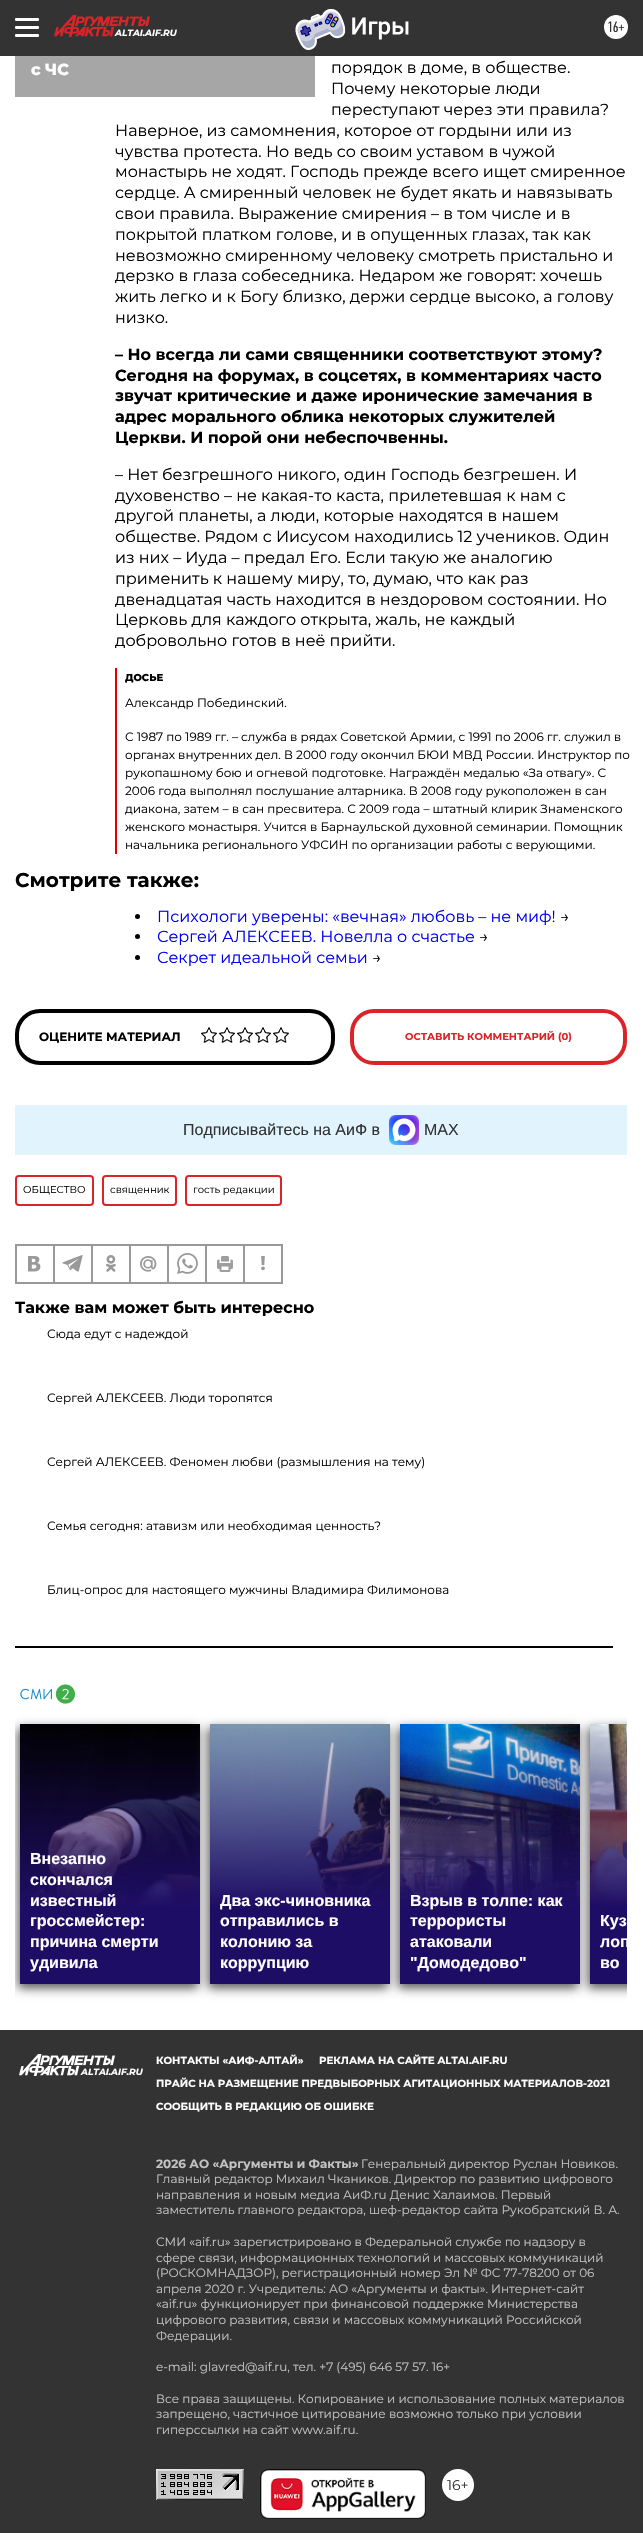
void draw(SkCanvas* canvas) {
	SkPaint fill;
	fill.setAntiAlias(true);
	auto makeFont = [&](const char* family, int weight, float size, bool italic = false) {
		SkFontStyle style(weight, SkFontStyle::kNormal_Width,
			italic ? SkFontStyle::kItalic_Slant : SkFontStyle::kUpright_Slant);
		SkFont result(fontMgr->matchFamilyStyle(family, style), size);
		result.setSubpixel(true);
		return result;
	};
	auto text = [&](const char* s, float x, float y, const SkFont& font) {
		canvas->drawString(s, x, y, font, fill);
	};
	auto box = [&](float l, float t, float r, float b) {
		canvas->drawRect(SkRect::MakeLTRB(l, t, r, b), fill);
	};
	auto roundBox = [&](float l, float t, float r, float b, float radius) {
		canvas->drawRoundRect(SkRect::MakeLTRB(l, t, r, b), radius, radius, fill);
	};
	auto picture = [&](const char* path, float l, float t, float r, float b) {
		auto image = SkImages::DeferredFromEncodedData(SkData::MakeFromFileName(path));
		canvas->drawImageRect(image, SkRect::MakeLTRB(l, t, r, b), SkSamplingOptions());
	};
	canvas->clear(0xFFFFFFFF);
	fill.setColor(0xFF333333);
	box(0, 0, 643, 56);
	fill.setColor(0xFFFFFFFF);
	roundBox(15, 18, 39, 21, 1);
	roundBox(15, 26, 39, 29, 1);
	roundBox(15, 34, 39, 37, 1);
	picture("image0.png", 54, 15, 150, 37);
	picture("image1.png", 295, 9, 409, 50);
	canvas->drawCircle(616, 27, 12, fill);
	fill.setColor(0xFFA6A6A6);
	box(15, 56, 315, 97);
	fill.setColor(0xFFE30000);
	box(115, 668, 117, 854);
	fill.setColor(0xFF000000);
	canvas->drawCircle(137.5f, 916.5f, 2.5f, fill);
	canvas->drawCircle(137.5f, 936.5f, 2.5f, fill);
	canvas->drawCircle(137.5f, 957.5f, 2.5f, fill);
	fill.setStyle(SkPaint::kStroke_Style);
	fill.setStrokeWidth(4);
	canvas->drawRoundRect(SkRect::MakeLTRB(17, 1011, 333, 1063), 23, 23, fill);
	picture("image2.png", 201, 1027, 217, 1043);
	picture("image2.png", 219, 1027, 235, 1043);
	picture("image2.png", 237, 1027, 253, 1043);
	picture("image2.png", 255, 1027, 271, 1043);
	picture("image2.png", 273, 1027, 289, 1043);
	fill.setColor(0xFFDA2429);
	canvas->drawRoundRect(SkRect::MakeLTRB(352, 1011, 625, 1063), 22, 22, fill);
	fill.setStyle(SkPaint::kFill_Style);
	fill.setColor(0xFFE1F3FC);
	box(15, 1105, 627, 1155);
	picture("image3.png", 389, 1115, 419, 1145);
	fill.setStyle(SkPaint::kStroke_Style);
	fill.setStrokeWidth(2);
	fill.setColor(0xFFDA2429);
	canvas->drawRoundRect(SkRect::MakeLTRB(16, 1176, 93, 1205), 3, 3, fill);
	canvas->drawRoundRect(SkRect::MakeLTRB(103, 1176, 176, 1205), 3, 3, fill);
	canvas->drawRoundRect(SkRect::MakeLTRB(186, 1176, 281, 1205), 3, 3, fill);
	fill.setStrokeWidth(1);
	fill.setColor(0xFF999999);
	canvas->drawRect(SkRect::MakeLTRB(15.5f, 1244.5f, 282.5f, 1283.5f), fill);
	canvas->drawRect(SkRect::MakeLTRB(16.5f, 1245.5f, 53.5f, 1282.5f), fill);
	picture("image4.png", 28, 1256, 41, 1272);
	canvas->drawRect(SkRect::MakeLTRB(54.5f, 1245.5f, 91.5f, 1282.5f), fill);
	picture("image5.png", 62, 1255, 83, 1272);
	canvas->drawRect(SkRect::MakeLTRB(92.5f, 1245.5f, 129.5f, 1282.5f), fill);
	picture("image6.png", 106, 1255, 116, 1272);
	canvas->drawRect(SkRect::MakeLTRB(130.5f, 1245.5f, 167.5f, 1282.5f), fill);
	picture("image7.png", 140, 1256, 157, 1272);
	canvas->drawRect(SkRect::MakeLTRB(168.5f, 1245.5f, 205.5f, 1282.5f), fill);
	picture("image8.png", 177, 1253, 198, 1274);
	canvas->drawRect(SkRect::MakeLTRB(206.5f, 1245.5f, 243.5f, 1282.5f), fill);
	picture("image9.png", 217, 1256, 233, 1272);
	canvas->drawRect(SkRect::MakeLTRB(244.5f, 1245.5f, 281.5f, 1282.5f), fill);
	picture("image10.png", 261, 1256, 265, 1271);
	fill.setStyle(SkPaint::kFill_Style);
	fill.setColor(0xFF000000);
	box(15, 1646, 613, 1648);
	picture("image11.png", 20, 1684, 75, 1704);
	canvas->save();
	canvas->clipRect(SkRect::MakeLTRB(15, 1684, 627, 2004));
	fill.setColor(0xFF565454);
	fill.setMaskFilter(SkMaskFilter::MakeBlur(kNormal_SkBlurStyle, 5));
	canvas->drawRect(SkRect::MakeLTRB(18, 1728, 198, 1988), fill);
	fill.setMaskFilter(nullptr);
	canvas->restore();
	picture("image12.png", 20, 1724, 200, 1905);
	fill.setMaskFilter(SkMaskFilter::MakeBlur(kNormal_SkBlurStyle, 5));
	canvas->drawRect(SkRect::MakeLTRB(208, 1728, 388, 1988), fill);
	fill.setMaskFilter(nullptr);
	{
		const SkColor colors[] = {0xFF1E0D64, 0x001E0D64};
		const float stops[] = {0.3f, 1};
		const SkPoint ends[] = {{110, 1984}, {110, 1724}};
		fill.setShader(SkGradientShader::MakeLinear(ends, colors, stops, 2, SkTileMode::kClamp));
		fill.setAlpha(255);
	}
	box(20, 1729, 200, 1984);
	picture("image13.png", 210, 1724, 390, 1905);
	fill.setShader(nullptr);
	fill.setColor(0xFF565454);
	fill.setMaskFilter(SkMaskFilter::MakeBlur(kNormal_SkBlurStyle, 5));
	canvas->drawRect(SkRect::MakeLTRB(398, 1728, 578, 1988), fill);
	fill.setMaskFilter(nullptr);
	{
		const SkColor colors[] = {0xFF1E0D64, 0x001E0D64};
		const float stops[] = {0.3f, 1};
		const SkPoint ends[] = {{300, 1984}, {300, 1724}};
		fill.setShader(SkGradientShader::MakeLinear(ends, colors, stops, 2, SkTileMode::kClamp));
		fill.setAlpha(255);
	}
	box(210, 1728, 390, 1984);
	picture("image14.png", 400, 1724, 580, 1905);
	canvas->save();
	canvas->clipRect(SkRect::MakeLTRB(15, 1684, 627, 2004));
	fill.setShader(nullptr);
	fill.setColor(0xFF565454);
	fill.setMaskFilter(SkMaskFilter::MakeBlur(kNormal_SkBlurStyle, 5));
	canvas->drawRect(SkRect::MakeLTRB(588, 1728, 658, 1988), fill);
	fill.setMaskFilter(nullptr);
	canvas->restore();
	{
		const SkColor colors[] = {0xFF1E0D64, 0x001E0D64};
		const float stops[] = {0.3f, 1};
		const SkPoint ends[] = {{490, 1984}, {490, 1724}};
		fill.setShader(SkGradientShader::MakeLinear(ends, colors, stops, 2, SkTileMode::kClamp));
		fill.setAlpha(255);
	}
	box(400, 1728, 580, 1984);
	picture("image15.png", 590, 1724, 627, 1984);
	fill.setShader(nullptr);
	fill.setColor(0xFF333333);
	box(0, 2030, 643, 2533);
	picture("image16.png", 19, 2054, 115, 2076);
	picture("image17.png", 156, 2469, 244, 2500);
	picture("image18.png", 260, 2469, 426, 2519);
	fill.setColor(0xFFFFFFFF);
	canvas->drawCircle(458, 2485, 16, fill);
	auto font1 = makeFont("Montserrat", 700, 9, true);
	text("ALTAI.AIF.RU", 115, 36, font1);
	auto font2 = makeFont("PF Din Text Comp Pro", 400, 15);
	fill.setColor(0xFF333333);
	text("16+", 607, 32, font2);
	auto font3 = makeFont("Montserrat", 800, 16);
	fill.setColor(0xFFFFFFFF);
	text("с ЧС", 31, 75, font3);
	auto font4 = makeFont("Montserrat", 400, 16);
	fill.setColor(0xFF000000);
	text("порядок в доме, в обществе.", 331, 73, font4);
	text("Почему некоторые люди", 331, 94, font4);
	text("переступают через эти правила?", 331, 115, font4);
	text("Наверное, из самомнения, которое от гордыни или из", 115, 136, font4);
	text("чувства протеста. Но ведь со своим уставом в чужой", 115, 157, font4);
	text("монастырь не ходят. Господь прежде всего ищет смиренное", 115, 177, font4);
	text("сердце. А смиренный человек не будет якать и навязывать", 115, 198, font4);
	text("свои правила. Выражение смирения – в том числе и в", 115, 219, font4);
	text("покрытой платком голове, и в опущенных глазах, так как", 115, 240, font4);
	text("невозможно смиренному человеку смотреть пристально и", 115, 261, font4);
	text("дерзко в глаза собеседника. Недаром же говорят: хочешь", 115, 281, font4);
	text("жить легко и к Богу близко, держи сердце высоко, а голову", 115, 302, font4);
	text("низко.", 115, 323, font4);
	auto font5 = makeFont("Montserrat", 700, 16);
	text("– Но всегда ли сами священники соответствуют этому?", 115, 360, font5);
	text("Сегодня на форумах, в соцсетях, в комментариях часто", 115, 381, font5);
	text("звучат критические и даже иронические замечания в", 115, 401, font5);
	text("адрес морального облика некоторых служителей", 115, 422, font5);
	text("Церкви. И порой они небеспочвенны.", 115, 443, font5);
	text("– Нет безгрешного никого, один Господь безгрешен. И", 115, 480, font4);
	text("духовенство – не какая-то каста, прилетевшая к нам с", 115, 501, font4);
	text("другой планеты, а люди, которые находятся в нашем", 115, 521, font4);
	text("обществе. Рядом с Иисусом находились 12 учеников. Один", 115, 542, font4);
	text("из них – Иуда – предал Его. Если такую же аналогию", 115, 563, font4);
	text("применить к нашему миру, то, думаю, что как раз", 115, 584, font4);
	text("двенадцатая часть находится в нездоровом состоянии. Но", 115, 605, font4);
	text("Церковь для каждого открыта, жаль, не каждый", 115, 625, font4);
	text("добровольно готов в неё прийти.", 115, 646, font4);
	auto font6 = makeFont("Montserrat", 800, 10);
	text("ДОСЬЕ", 125, 681, font6);
	auto font7 = makeFont("Montserrat", 400, 12);
	text("Александр Побединский.", 125, 707, font7);
	text("С 1987 по 1989 гг. – служба в рядах Советской Армии, с 1991 по 2006 гг. служил в", 125, 741, font7);
	text("органах внутренних дел. В 2000 году окончил БЮИ МВД России. Инструктор по", 125, 759, font7);
	text("рукопашному бою и огневой подготовке. Награждён медалью «За отвагу». С", 125, 777, font7);
	text("2006 года выполнял послушание алтарника. В 2008 году рукоположен в сан", 125, 795, font7);
	text("диакона, затем – в сан пресвитера. С 2009 года – штатный клирик Знаменского", 125, 813, font7);
	text("женского монастыря. Учится в Барнаульской духовной семинарии. Помощник", 125, 831, font7);
	text("начальника регионального УФСИН по организации работы с верующими.", 125, 849, font7);
	auto font8 = makeFont("Montserrat", 700, 20);
	text("Смотрите также:", 15, 887, font8);
	fill.setColor(0xFF0000EE);
	text("Психологи уверены: «вечная» любовь – не миф!", 157, 922, font4);
	fill.setColor(0xFF000000);
	text("→", 560, 922, font4);
	fill.setColor(0xFF0000EE);
	text("Сергей АЛЕКСЕЕВ. Новелла о счастье", 157, 942, font4);
	fill.setColor(0xFF000000);
	text("→", 479, 942, font4);
	fill.setColor(0xFF0000EE);
	text("Секрет идеальной семьи", 157, 963, font4);
	fill.setColor(0xFF000000);
	text("→", 372, 963, font4);
	auto font9 = makeFont("Montserrat", 700, 12);
	text("ОЦЕНИТЕ МАТЕРИАЛ", 39, 1041, font9);
	auto font10 = makeFont("Montserrat", 700, 10);
	fill.setColor(0xFFDA2429);
	text("ОСТАВИТЬ КОММЕНТАРИЙ (0)", 405, 1040, font10);
	auto font11 = makeFont("Liberation Sans", 400, 16);
	fill.setColor(0xFF333333);
	text("Подписывайтесь на АиФ в", 183, 1135, font11);
	text("MAX", 424, 1135, font11);
	auto font12 = makeFont("Montserrat", 400, 10);
	fill.setColor(0xFF000000);
	text("ОБЩЕСТВО", 23, 1193, font12);
	text("священник", 110, 1193, font12);
	text("гость редакции", 193, 1193, font12);
	text("Также вам может быть интересно", 15, 1313, font5);
	text("Сюда едут с надеждой", 47, 1338, font7);
	text("Сергей АЛЕКСЕЕВ. Люди торопятся", 47, 1402, font7);
	text("Сергей АЛЕКСЕЕВ. Феномен любви (размышления на тему)", 47, 1466, font7);
	text("Семья сегодня: атавизм или необходимая ценность?", 47, 1530, font7);
	text("Блиц-опрос для настоящего мужчины Владимира Филимонова", 47, 1594, font7);
	auto font13 = makeFont("Liberation Sans", 700, 16);
	fill.setColor(0xFFFFFFFF);
	text("Внезапно", 30, 1864, font13);
	text("скончался", 30, 1885, font13);
	text("известный", 30, 1906, font13);
	text("гроссмейстер:", 30, 1926, font13);
	text("причина смерти", 30, 1947, font13);
	text("удивила", 30, 1968, font13);
	text("Два экс-чиновника", 220, 1906, font13);
	text("отправились в", 220, 1926, font13);
	text("колонию за", 220, 1947, font13);
	text("коррупцию", 220, 1968, font13);
	text("Взрыв в толпе: как", 410, 1906, font13);
	text("террористы", 410, 1926, font13);
	text("атаковали", 410, 1947, font13);
	text("\"Домодедово\"", 410, 1968, font13);
	text("Куз", 600, 1926, font13);
	canvas->save();
	canvas->clipRect(SkRect::MakeLTRB(590, 1724, 627, 1984));
	text("лоп", 600, 1947, font13);
	canvas->restore();
	text("во", 600, 1968, font13);
	text("ALTAI.AIF.RU", 81, 2075, font1);
	auto font14 = makeFont("Montserrat", 700, 10.2f);
	text("КОНТАКТЫ «АИФ-АЛТАЙ»", 156, 2064, font14);
	text("РЕКЛАМА НА САЙТЕ ALTAI.AIF.RU", 319, 2064, font14);
	text("ПРАЙС НА РАЗМЕЩЕНИЕ ПРЕДВЫБОРНЫХ АГИТАЦИОННЫХ МАТЕРИАЛОВ-2021", 156, 2087, font14);
	text("СООБЩИТЬ В РЕДАКЦИЮ ОБ ОШИБКЕ", 156, 2110, font14);
	fill.setColor(0xFFC2C2C2);
	text("2026 АО «Аргументы и Факты»", 156, 2168, font9);
	text("Генеральный директор Руслан Новиков.", 361, 2168, font7);
	text("Главный редактор Михаил Чкаников. Директор по развитию цифрового", 156, 2183, font7);
	text("направления и новым медиа АиФ.ru Денис Халаимов. Первый", 156, 2199, font7);
	text("заместитель главного редактора, шеф-редактор сайта Рукобратский В. А.", 156, 2214, font7);
	text("СМИ «aif.ru» зарегистрировано в Федеральной службе по надзору в", 156, 2246, font7);
	text("сфере связи, информационных технологий и массовых коммуникаций", 156, 2262, font7);
	text("(РОСКОМНАДЗОР), регистрационный номер Эл № ФС 77-78200 от 06", 156, 2277, font7);
	text("апреля 2020 г. Учредитель: АО «Аргументы и факты». Интернет-сайт", 156, 2293, font7);
	text("«aif.ru» функционирует при финансовой поддержке Министерства", 156, 2308, font7);
	text("цифрового развития, связи и массовых коммуникаций Российской", 156, 2324, font7);
	text("Федерации.", 156, 2340, font7);
	text("e-mail: glavred@aif.ru, тел. +7 (495) 646 57 57. 16+", 156, 2371, font7);
	text("Все права защищены. Копирование и использование полных материалов", 156, 2403, font7);
	text("запрещено, частичное цитирование возможно только при условии", 156, 2418, font7);
	text("гиперссылки на сайт www.aif.ru.", 156, 2434, font7);
	auto font15 = makeFont("Montserrat", 400, 14);
	fill.setColor(0xFF333333);
	text("16+", 447, 2490, font15);
}
